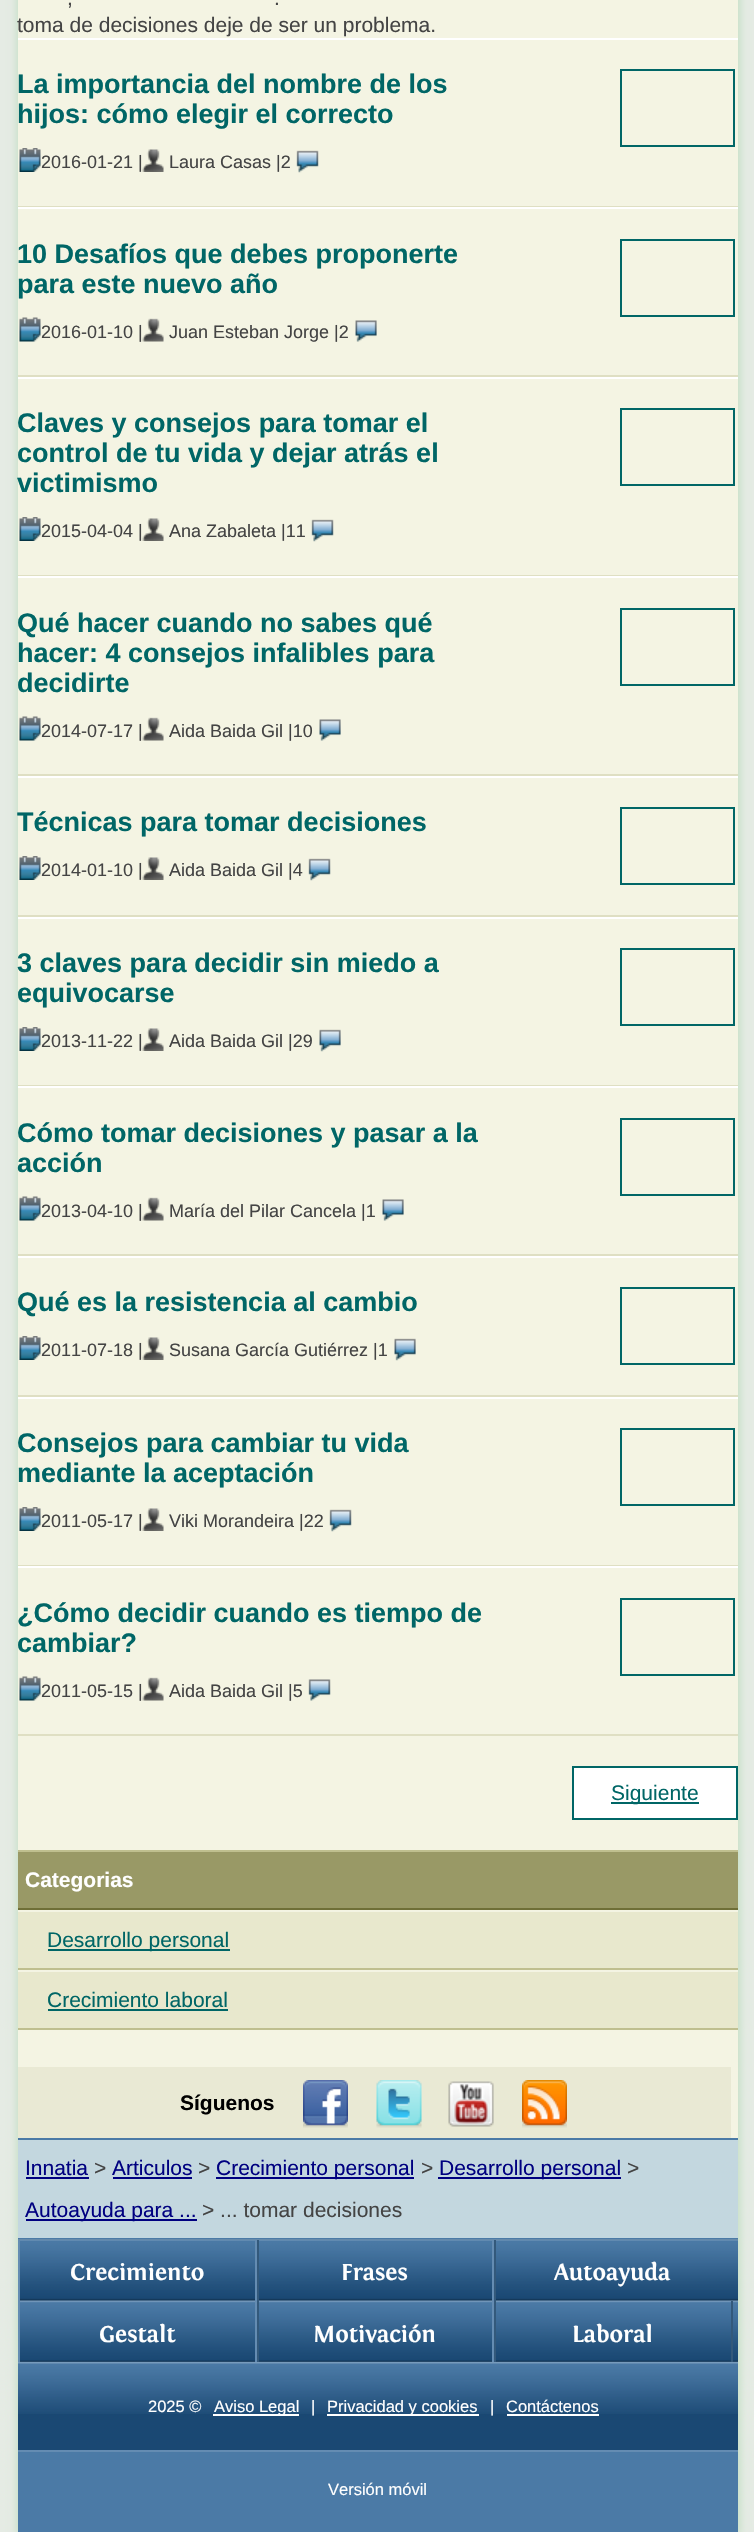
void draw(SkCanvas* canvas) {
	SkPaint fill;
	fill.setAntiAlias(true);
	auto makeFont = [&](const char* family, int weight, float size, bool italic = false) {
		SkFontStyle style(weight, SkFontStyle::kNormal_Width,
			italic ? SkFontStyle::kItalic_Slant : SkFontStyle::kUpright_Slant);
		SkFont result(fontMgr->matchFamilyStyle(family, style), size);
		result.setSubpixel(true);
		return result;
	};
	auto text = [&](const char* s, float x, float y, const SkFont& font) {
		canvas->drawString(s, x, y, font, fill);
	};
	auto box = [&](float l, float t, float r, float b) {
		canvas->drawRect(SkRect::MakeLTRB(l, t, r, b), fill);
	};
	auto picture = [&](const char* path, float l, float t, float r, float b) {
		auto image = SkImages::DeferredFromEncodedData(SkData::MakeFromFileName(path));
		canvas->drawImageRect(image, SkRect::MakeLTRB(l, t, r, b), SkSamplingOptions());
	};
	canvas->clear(0xFFE5EBE4);
	fill.setColor(0xFFC3DFC4);
	fill.setMaskFilter(SkMaskFilter::MakeBlur(kNormal_SkBlurStyle, 4));
	canvas->drawRect(SkRect::MakeLTRB(17, -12, 740, 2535), fill);
	fill.setMaskFilter(nullptr);
	fill.setColor(0xFFF4F4E3);
	box(18, 0, 738, 2138);
	fill.setColor(0xFFFFFFFF);
	box(18, 38, 738, 40);
	fill.setColor(0xFFDFDFC3);
	box(18, 206, 738, 207);
	fill.setStyle(SkPaint::kStroke_Style);
	fill.setStrokeWidth(2);
	fill.setColor(0xFF006666);
	canvas->drawRect(SkRect::MakeLTRB(621, 70, 734, 146), fill);
	picture("image0.png", 19, 148, 41, 172);
	picture("image1.png", 142, 149, 164, 172);
	picture("image2.png", 296, 150, 319, 173);
	fill.setStyle(SkPaint::kFill_Style);
	fill.setColor(0xFFFFFFFF);
	box(18, 207, 738, 209);
	fill.setColor(0xFFDFDFC3);
	box(18, 375, 738, 377);
	fill.setStyle(SkPaint::kStroke_Style);
	fill.setColor(0xFF006666);
	canvas->drawRect(SkRect::MakeLTRB(621, 240, 734, 316), fill);
	picture("image3.png", 19, 317, 41, 342);
	picture("image4.png", 142, 318, 164, 342);
	picture("image5.png", 355, 320, 377, 342);
	fill.setStyle(SkPaint::kFill_Style);
	fill.setColor(0xFFFFFFFF);
	box(18, 377, 738, 379);
	fill.setColor(0xFFDFDFC3);
	box(18, 575, 738, 576);
	fill.setStyle(SkPaint::kStroke_Style);
	fill.setColor(0xFF006666);
	canvas->drawRect(SkRect::MakeLTRB(621, 409, 734, 485), fill);
	picture("image0.png", 19, 517, 41, 541);
	picture("image1.png", 142, 518, 164, 541);
	picture("image6.png", 311, 519, 334, 542);
	fill.setStyle(SkPaint::kFill_Style);
	fill.setColor(0xFFFFFFFF);
	box(18, 576, 738, 578);
	fill.setColor(0xFFDFDFC3);
	box(18, 774, 738, 776);
	fill.setStyle(SkPaint::kStroke_Style);
	fill.setColor(0xFF006666);
	canvas->drawRect(SkRect::MakeLTRB(621, 609, 734, 685), fill);
	picture("image3.png", 19, 716, 41, 741);
	picture("image4.png", 142, 717, 164, 741);
	picture("image5.png", 319, 719, 341, 741);
	fill.setStyle(SkPaint::kFill_Style);
	fill.setColor(0xFFFFFFFF);
	box(18, 776, 738, 778);
	fill.setColor(0xFFDFDFC3);
	box(18, 915, 738, 917);
	fill.setStyle(SkPaint::kStroke_Style);
	fill.setColor(0xFF006666);
	canvas->drawRect(SkRect::MakeLTRB(621, 808, 734, 884), fill);
	picture("image0.png", 19, 856, 41, 880);
	picture("image1.png", 142, 857, 164, 880);
	picture("image6.png", 308, 858, 331, 881);
	fill.setStyle(SkPaint::kFill_Style);
	fill.setColor(0xFFFFFFFF);
	box(18, 917, 738, 919);
	fill.setColor(0xFFDFDFC3);
	box(18, 1085, 738, 1086);
	fill.setStyle(SkPaint::kStroke_Style);
	fill.setColor(0xFF006666);
	canvas->drawRect(SkRect::MakeLTRB(621, 949, 734, 1025), fill);
	picture("image0.png", 19, 1027, 41, 1051);
	picture("image1.png", 142, 1028, 164, 1051);
	picture("image7.png", 319, 1029, 341, 1052);
	fill.setStyle(SkPaint::kFill_Style);
	fill.setColor(0xFFFFFFFF);
	box(18, 1086, 738, 1088);
	fill.setColor(0xFFDFDFC3);
	box(18, 1254, 738, 1256);
	fill.setStyle(SkPaint::kStroke_Style);
	fill.setColor(0xFF006666);
	canvas->drawRect(SkRect::MakeLTRB(621, 1119, 734, 1195), fill);
	picture("image3.png", 19, 1196, 41, 1221);
	picture("image4.png", 142, 1197, 164, 1221);
	picture("image5.png", 382, 1199, 404, 1221);
	fill.setStyle(SkPaint::kFill_Style);
	fill.setColor(0xFFFFFFFF);
	box(18, 1256, 738, 1258);
	fill.setColor(0xFFDFDFC3);
	box(18, 1395, 738, 1397);
	fill.setStyle(SkPaint::kStroke_Style);
	fill.setColor(0xFF006666);
	canvas->drawRect(SkRect::MakeLTRB(621, 1288, 734, 1364), fill);
	picture("image0.png", 19, 1336, 41, 1360);
	picture("image1.png", 142, 1337, 164, 1360);
	picture("image7.png", 394, 1338, 416, 1361);
	fill.setStyle(SkPaint::kFill_Style);
	fill.setColor(0xFFFFFFFF);
	box(18, 1397, 738, 1399);
	fill.setColor(0xFFDFDFC3);
	box(18, 1565, 738, 1566);
	fill.setStyle(SkPaint::kStroke_Style);
	fill.setColor(0xFF006666);
	canvas->drawRect(SkRect::MakeLTRB(621, 1429, 734, 1505), fill);
	picture("image0.png", 19, 1507, 41, 1531);
	picture("image1.png", 142, 1508, 164, 1531);
	picture("image6.png", 329, 1509, 352, 1532);
	fill.setStyle(SkPaint::kFill_Style);
	fill.setColor(0xFFFFFFFF);
	box(18, 1566, 738, 1568);
	fill.setColor(0xFFDFDFC3);
	box(18, 1734, 738, 1736);
	fill.setStyle(SkPaint::kStroke_Style);
	fill.setColor(0xFF006666);
	canvas->drawRect(SkRect::MakeLTRB(621, 1599, 734, 1675), fill);
	picture("image3.png", 19, 1676, 41, 1701);
	picture("image4.png", 142, 1677, 164, 1701);
	picture("image8.png", 308, 1679, 331, 1701);
	fill.setStyle(SkPaint::kFill_Style);
	fill.setColor(0xFFFFFFFF);
	canvas->drawRect(SkRect::MakeLTRB(573, 1767, 737, 1819), fill);
	fill.setStyle(SkPaint::kStroke_Style);
	fill.setColor(0xFF006666);
	canvas->drawRect(SkRect::MakeLTRB(573, 1767, 737, 1819), fill);
	fill.setStyle(SkPaint::kFill_Style);
	box(611, 1802, 699, 1804);
	fill.setColor(0xFF999966);
	box(18, 1852, 738, 1908);
	fill.setColor(0xFFBFBF8F);
	box(18, 1850, 738, 1852);
	fill.setColor(0xFF6F6F37);
	box(18, 1908, 738, 1910);
	fill.setColor(0xFFE8E8CD);
	box(18, 1912, 738, 2028);
	fill.setColor(0xFFBFBF8F);
	box(18, 1968, 738, 1970);
	fill.setColor(0xFF006666);
	box(48, 1949, 230, 1951);
	fill.setColor(0xFFF4F4E3);
	box(18, 1970, 738, 1972);
	fill.setColor(0xFFBFBF8F);
	box(18, 2028, 738, 2030);
	fill.setColor(0xFF006666);
	box(48, 2009, 228, 2011);
	fill.setColor(0xFFE9E9D4);
	box(18, 2067, 731, 2138);
	picture("image9.png", 303, 2080, 348, 2128);
	picture("image10.png", 376, 2080, 422, 2128);
	picture("image11.png", 448, 2081, 494, 2127);
	picture("image12.png", 522, 2080, 567, 2128);
	fill.setColor(0xFFC3D7DF);
	box(18, 2140, 738, 2238);
	fill.setColor(0xFF4B7AA6);
	box(18, 2138, 738, 2140);
	box(18, 2238, 738, 2239);
	fill.setColor(0xFF000080);
	box(26, 2177, 89, 2179);
	box(113, 2177, 192, 2179);
	box(216, 2177, 414, 2179);
	box(438, 2177, 621, 2179);
	box(26, 2219, 197, 2221);
	picture("image13.png", 18, 2239, 738, 2362);
	fill.setColor(0xFF33597B);
	box(257, 2240, 259, 2363);
	fill.setColor(0xFF648CB2);
	box(18, 2240, 20, 2363);
	fill.setColor(0xFF33597B);
	box(494, 2240, 496, 2363);
	fill.setColor(0xFF648CB2);
	box(255, 2240, 257, 2363);
	box(492, 2240, 494, 2363);
	fill.setColor(0xFF33597B);
	box(731, 2301, 733, 2363);
	fill.setColor(0xFF4B7AA6);
	box(18, 2452, 738, 2532);
	fill.setColor(0xFF1A4873);
	box(18, 2414, 738, 2450);
	picture("image14.png", 18, 2362, 738, 2414);
	fill.setColor(0xFF648CB2);
	box(18, 2450, 738, 2452);
	fill.setColor(0xFFFFFFFF);
	box(213, 2414, 299, 2416);
	box(327, 2414, 479, 2416);
	box(507, 2414, 599, 2416);
	auto font1 = makeFont("Liberation Sans", 400, 21);
	fill.setColor(0xFF444444);
	text(",", 67, 5, font1);
	text(".", 274, 5, font1);
	text("toma de decisiones deje de ser un problema.", 17, 32, font1);
	auto font2 = makeFont("Liberation Sans", 700, 27);
	fill.setColor(0xFF006666);
	text("La importancia del nombre de los", 17, 93, font2);
	text("hijos: cómo elegir el correcto", 17, 123, font2);
	auto font3 = makeFont("Liberation Sans", 400, 18);
	fill.setColor(0xFF444444);
	text("2016-01-21 |", 41, 168, font3);
	text("Laura Casas |2", 169, 168, font3);
	fill.setColor(0xFF006666);
	text("10 Desafíos que debes proponerte", 17, 263, font2);
	text("para este nuevo año", 17, 293, font2);
	fill.setColor(0xFF444444);
	text("2016-01-10 |", 41, 338, font3);
	text("Juan Esteban Jorge |2", 169, 338, font3);
	fill.setColor(0xFF006666);
	text("Claves y consejos para tomar el", 17, 432, font2);
	text("control de tu vida y dejar atrás el", 17, 462, font2);
	text("victimismo", 17, 492, font2);
	fill.setColor(0xFF444444);
	text("2015-04-04 |", 41, 537, font3);
	text("Ana Zabaleta |11", 169, 537, font3);
	fill.setColor(0xFF006666);
	text("Qué hacer cuando no sabes qué", 17, 632, font2);
	text("hacer: 4 consejos infalibles para", 17, 662, font2);
	text("decidirte", 17, 692, font2);
	fill.setColor(0xFF444444);
	text("2014-07-17 |", 41, 737, font3);
	text("Aida Baida Gil |10", 169, 737, font3);
	fill.setColor(0xFF006666);
	text("Técnicas para tomar decisiones", 17, 831, font2);
	fill.setColor(0xFF444444);
	text("2014-01-10 |", 41, 876, font3);
	text("Aida Baida Gil |4", 169, 876, font3);
	fill.setColor(0xFF006666);
	text("3 claves para decidir sin miedo a", 17, 972, font2);
	text("equivocarse", 17, 1002, font2);
	fill.setColor(0xFF444444);
	text("2013-11-22 |", 41, 1047, font3);
	text("Aida Baida Gil |29", 169, 1047, font3);
	fill.setColor(0xFF006666);
	text("Cómo tomar decisiones y pasar a la", 17, 1142, font2);
	text("acción", 17, 1172, font2);
	fill.setColor(0xFF444444);
	text("2013-04-10 |", 41, 1217, font3);
	text("María del Pilar Cancela |1", 169, 1217, font3);
	fill.setColor(0xFF006666);
	text("Qué es la resistencia al cambio", 17, 1311, font2);
	fill.setColor(0xFF444444);
	text("2011-07-18 |", 41, 1356, font3);
	text("Susana García Gutiérrez |1", 169, 1356, font3);
	fill.setColor(0xFF006666);
	text("Consejos para cambiar tu vida", 17, 1452, font2);
	text("mediante la aceptación", 17, 1482, font2);
	fill.setColor(0xFF444444);
	text("2011-05-17 |", 41, 1527, font3);
	text("Viki Morandeira |22", 169, 1527, font3);
	fill.setColor(0xFF006666);
	text("¿Cómo decidir cuando es tiempo de", 17, 1622, font2);
	text("cambiar?", 17, 1652, font2);
	fill.setColor(0xFF444444);
	text("2011-05-15 |", 41, 1697, font3);
	text("Aida Baida Gil |5", 169, 1697, font3);
	fill.setColor(0xFF006666);
	text("Siguiente", 611, 1800, font1);
	auto font4 = makeFont("Liberation Sans", 700, 21);
	fill.setColor(0xFFFFFFFF);
	text("Categorias", 25, 1887, font4);
	fill.setColor(0xFF006666);
	text("Desarrollo personal", 47, 1947, font1);
	text("Crecimiento laboral", 47, 2007, font1);
	fill.setColor(0xFF000000);
	text("Síguenos", 180, 2110, font4);
	fill.setColor(0xFF000080);
	text("Innatia", 25, 2175, font1);
	fill.setColor(0xFF444444);
	text(">", 94, 2175, font1);
	fill.setColor(0xFF000080);
	text("Articulos", 112, 2175, font1);
	fill.setColor(0xFF444444);
	text(">", 198, 2175, font1);
	fill.setColor(0xFF000080);
	text("Crecimiento personal", 216, 2175, font1);
	fill.setColor(0xFF444444);
	text(">", 421, 2175, font1);
	fill.setColor(0xFF000080);
	text("Desarrollo personal", 439, 2175, font1);
	fill.setColor(0xFF444444);
	text(">", 627, 2175, font1);
	fill.setColor(0xFF000080);
	text("Autoayuda para ...", 25, 2217, font1);
	fill.setColor(0xFF444444);
	text("> ... tomar decisiones", 202, 2217, font1);
	auto font5 = makeFont("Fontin", 700, 24);
	fill.setColor(0xFFFFFFFF);
	text("Crecimiento", 70, 2280, font5);
	text("Frases", 341, 2280, font5);
	text("Autoayuda", 554, 2280, font5);
	text("Gestalt", 99, 2342, font5);
	text("Motivación", 313, 2342, font5);
	text("Laboral", 572, 2342, font5);
	auto font6 = makeFont("Liberation Sans", 400, 16.5f);
	text("2025 ©", 148, 2412, font6);
	text("Aviso Legal", 214, 2412, font6);
	text("|", 311, 2412, font6);
	text("Privacidad y cookies", 327, 2412, font6);
	text("|", 490, 2412, font6);
	text("Contáctenos", 506, 2412, font6);
	text("Versión móvil", 328, 2495, font6);
}
